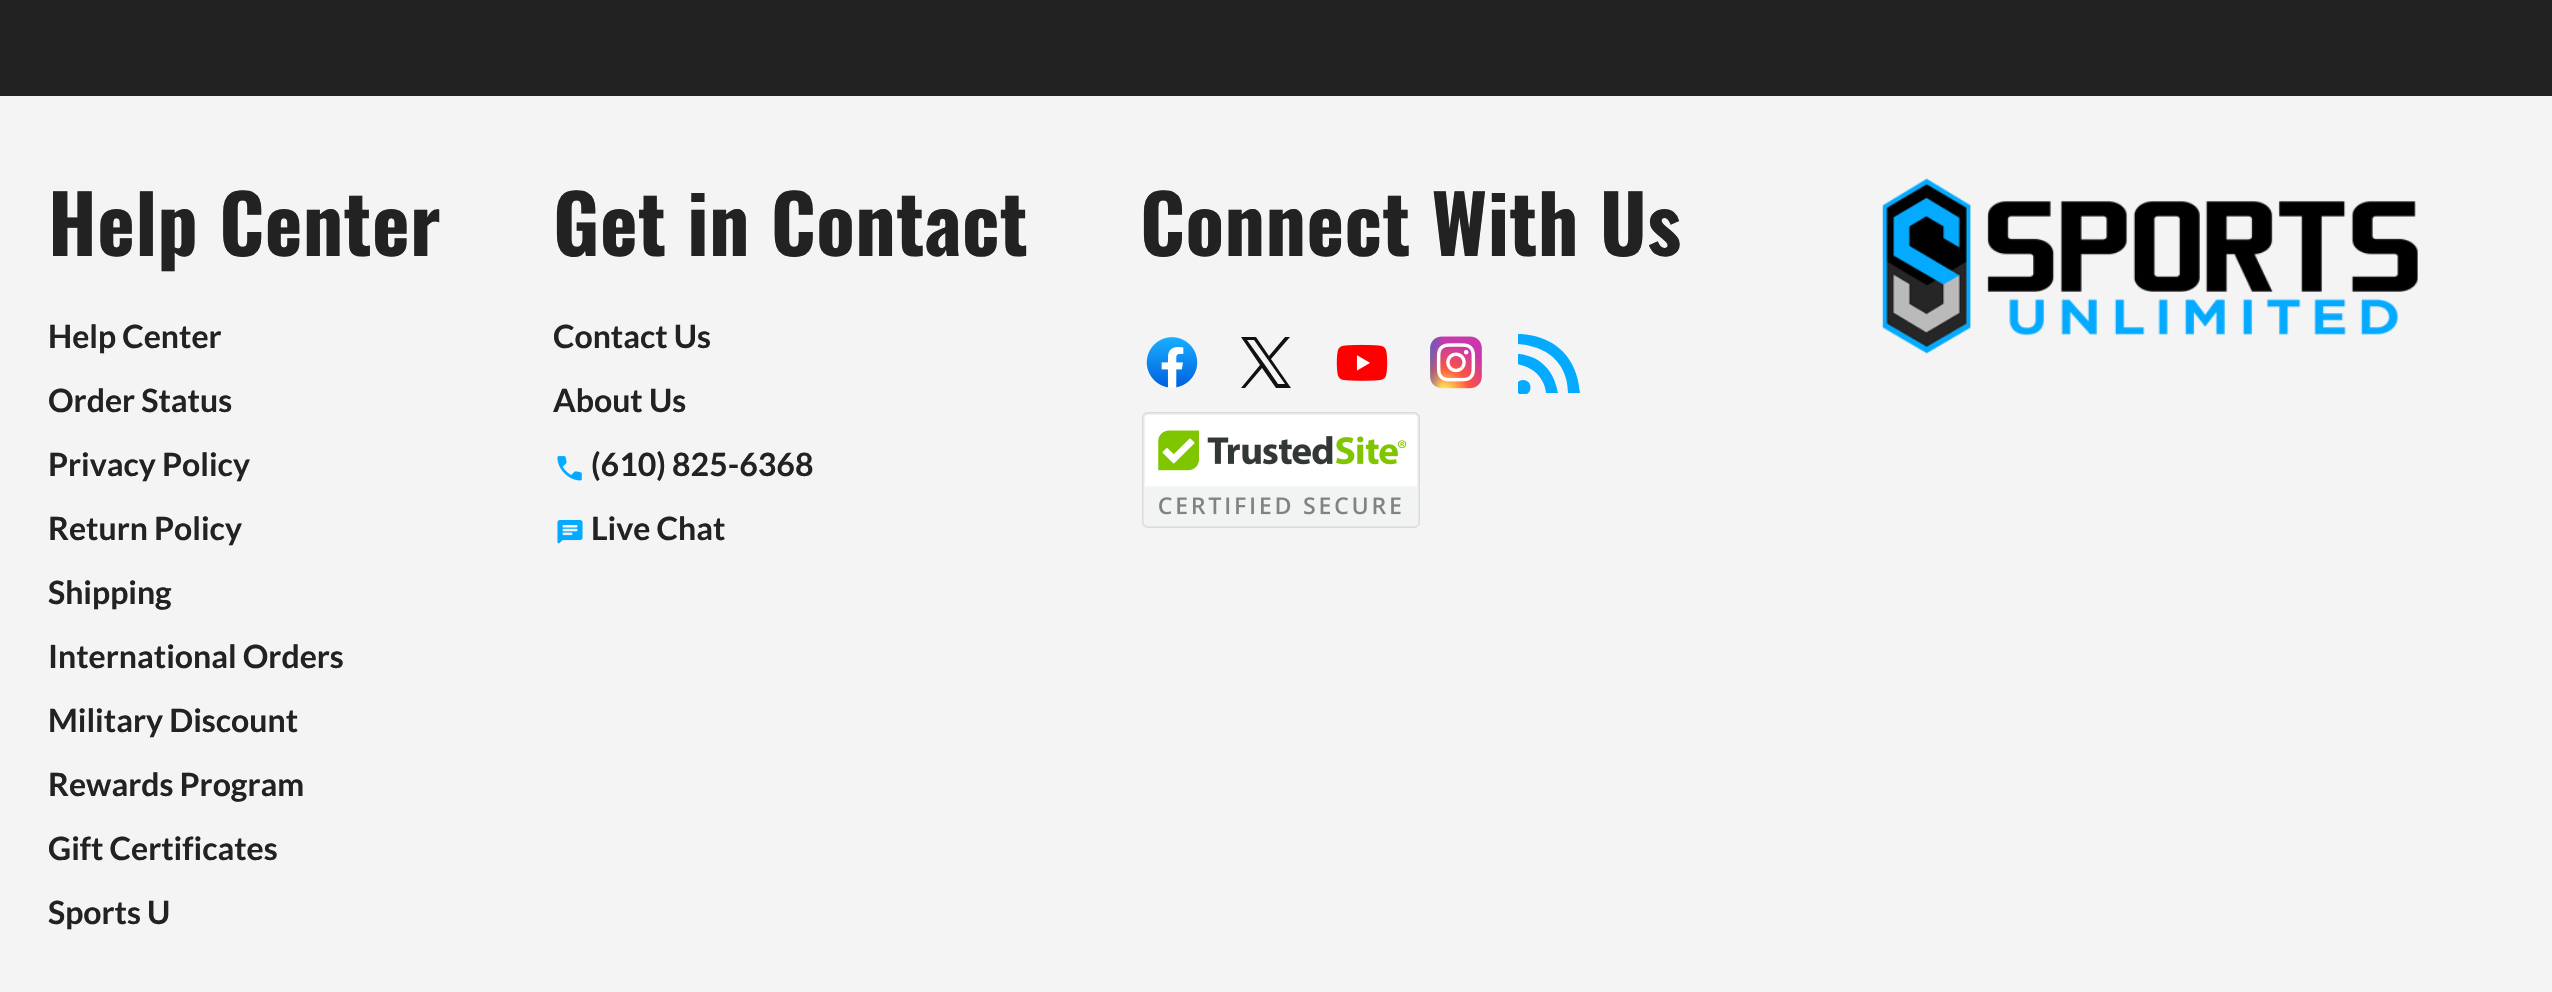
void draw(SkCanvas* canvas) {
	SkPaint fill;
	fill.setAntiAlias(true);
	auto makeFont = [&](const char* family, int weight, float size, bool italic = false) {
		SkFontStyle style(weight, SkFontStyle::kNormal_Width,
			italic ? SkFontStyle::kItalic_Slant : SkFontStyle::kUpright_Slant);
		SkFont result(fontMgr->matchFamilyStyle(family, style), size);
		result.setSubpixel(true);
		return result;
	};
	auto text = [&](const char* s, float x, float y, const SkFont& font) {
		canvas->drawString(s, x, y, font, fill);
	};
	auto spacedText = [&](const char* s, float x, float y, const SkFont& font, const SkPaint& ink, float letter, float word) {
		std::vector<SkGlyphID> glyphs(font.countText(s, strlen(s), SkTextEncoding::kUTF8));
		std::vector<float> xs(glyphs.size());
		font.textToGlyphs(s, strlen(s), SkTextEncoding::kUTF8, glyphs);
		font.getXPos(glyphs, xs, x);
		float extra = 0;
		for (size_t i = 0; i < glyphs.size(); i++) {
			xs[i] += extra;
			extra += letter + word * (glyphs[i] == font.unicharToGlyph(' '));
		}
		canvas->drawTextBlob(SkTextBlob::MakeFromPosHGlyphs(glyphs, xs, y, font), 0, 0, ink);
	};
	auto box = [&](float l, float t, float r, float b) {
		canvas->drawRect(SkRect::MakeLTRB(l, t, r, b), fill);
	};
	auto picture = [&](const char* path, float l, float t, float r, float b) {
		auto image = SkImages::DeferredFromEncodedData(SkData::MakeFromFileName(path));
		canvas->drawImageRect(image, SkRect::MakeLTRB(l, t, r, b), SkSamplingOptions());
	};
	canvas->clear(0xFFF4F4F4);
	fill.setColor(0xFF222222);
	box(0, 0, 2552, 96);
	picture("image0.png", 557, 456, 582, 481);
	picture("image1.png", 557, 520, 583, 544);
	picture("image2.png", 1146, 337, 1198, 388);
	fill.setColor(0xFF111111);
	canvas->drawPath(SkPathBuilder().moveTo(1271, 359).lineTo(1290, 337).lineTo(1285, 337).lineTo(1269, 356).lineTo(1256, 337).lineTo(1241, 337).lineTo(1260, 365).lineTo(1241, 388).lineTo(1245, 388).lineTo(1262, 368).lineTo(1276, 388).lineTo(1291, 388).close().moveTo(1265, 365).lineTo(1247, 340).lineTo(1254, 340).lineTo(1285, 384).lineTo(1278, 384).close().detach(), fill);
	picture("image3.png", 1336, 344, 1388, 381);
	picture("image4.png", 1430, 336, 1482, 389);
	canvas->save();
	canvas->clipRect(SkRect::MakeLTRB(1518, 330, 1582, 394));
	fill.setColor(0xFF04AAFF);
	canvas->drawPath(SkPathBuilder().moveTo(1517, 334).cubicTo(1517, 334, 1575, 331, 1580, 393).lineTo(1568, 393).cubicTo(1568, 393, 1571, 348, 1517, 344).close().moveTo(1517, 354).cubicTo(1517, 354, 1551, 353, 1558, 393).lineTo(1546, 393).cubicTo(1546, 393, 1545, 369, 1517, 364).close().moveTo(1523, 380).cubicTo(1533, 380, 1533, 395, 1523, 395).cubicTo(1514, 395, 1514, 380, 1523, 380).close().detach(), fill);
	canvas->restore();
	picture("image5.png", 1142, 412, 1420, 528);
	picture("image6.png", 1882, 178, 2418, 354);
	auto font1 = makeFont("Oswald", 700, 80);
	fill.setColor(0xFF222222);
	spacedText("Help Center", 48, 256, font1, fill, 0.4f, 0);
	auto font2 = makeFont("Lato", 700, 32);
	text("Help Center", 48, 348, font2);
	text("Order Status", 48, 412, font2);
	text("Privacy Policy", 48, 476, font2);
	text("Return Policy", 48, 540, font2);
	text("Shipping", 48, 604, font2);
	text("International Orders", 48, 668, font2);
	text("Military Discount", 48, 732, font2);
	text("Rewards Program", 48, 796, font2);
	text("Gift Certificates", 48, 860, font2);
	text("Sports U", 48, 924, font2);
	spacedText("Get in Contact", 553, 256, font1, fill, 0.4f, 0);
	text("Contact Us", 553, 348, font2);
	text("About Us", 553, 412, font2);
	text("(610) 825-6368", 591, 476, font2);
	text("Live Chat", 591, 540, font2);
	spacedText("Connect With Us", 1140, 256, font1, fill, 0.4f, 0);
}
